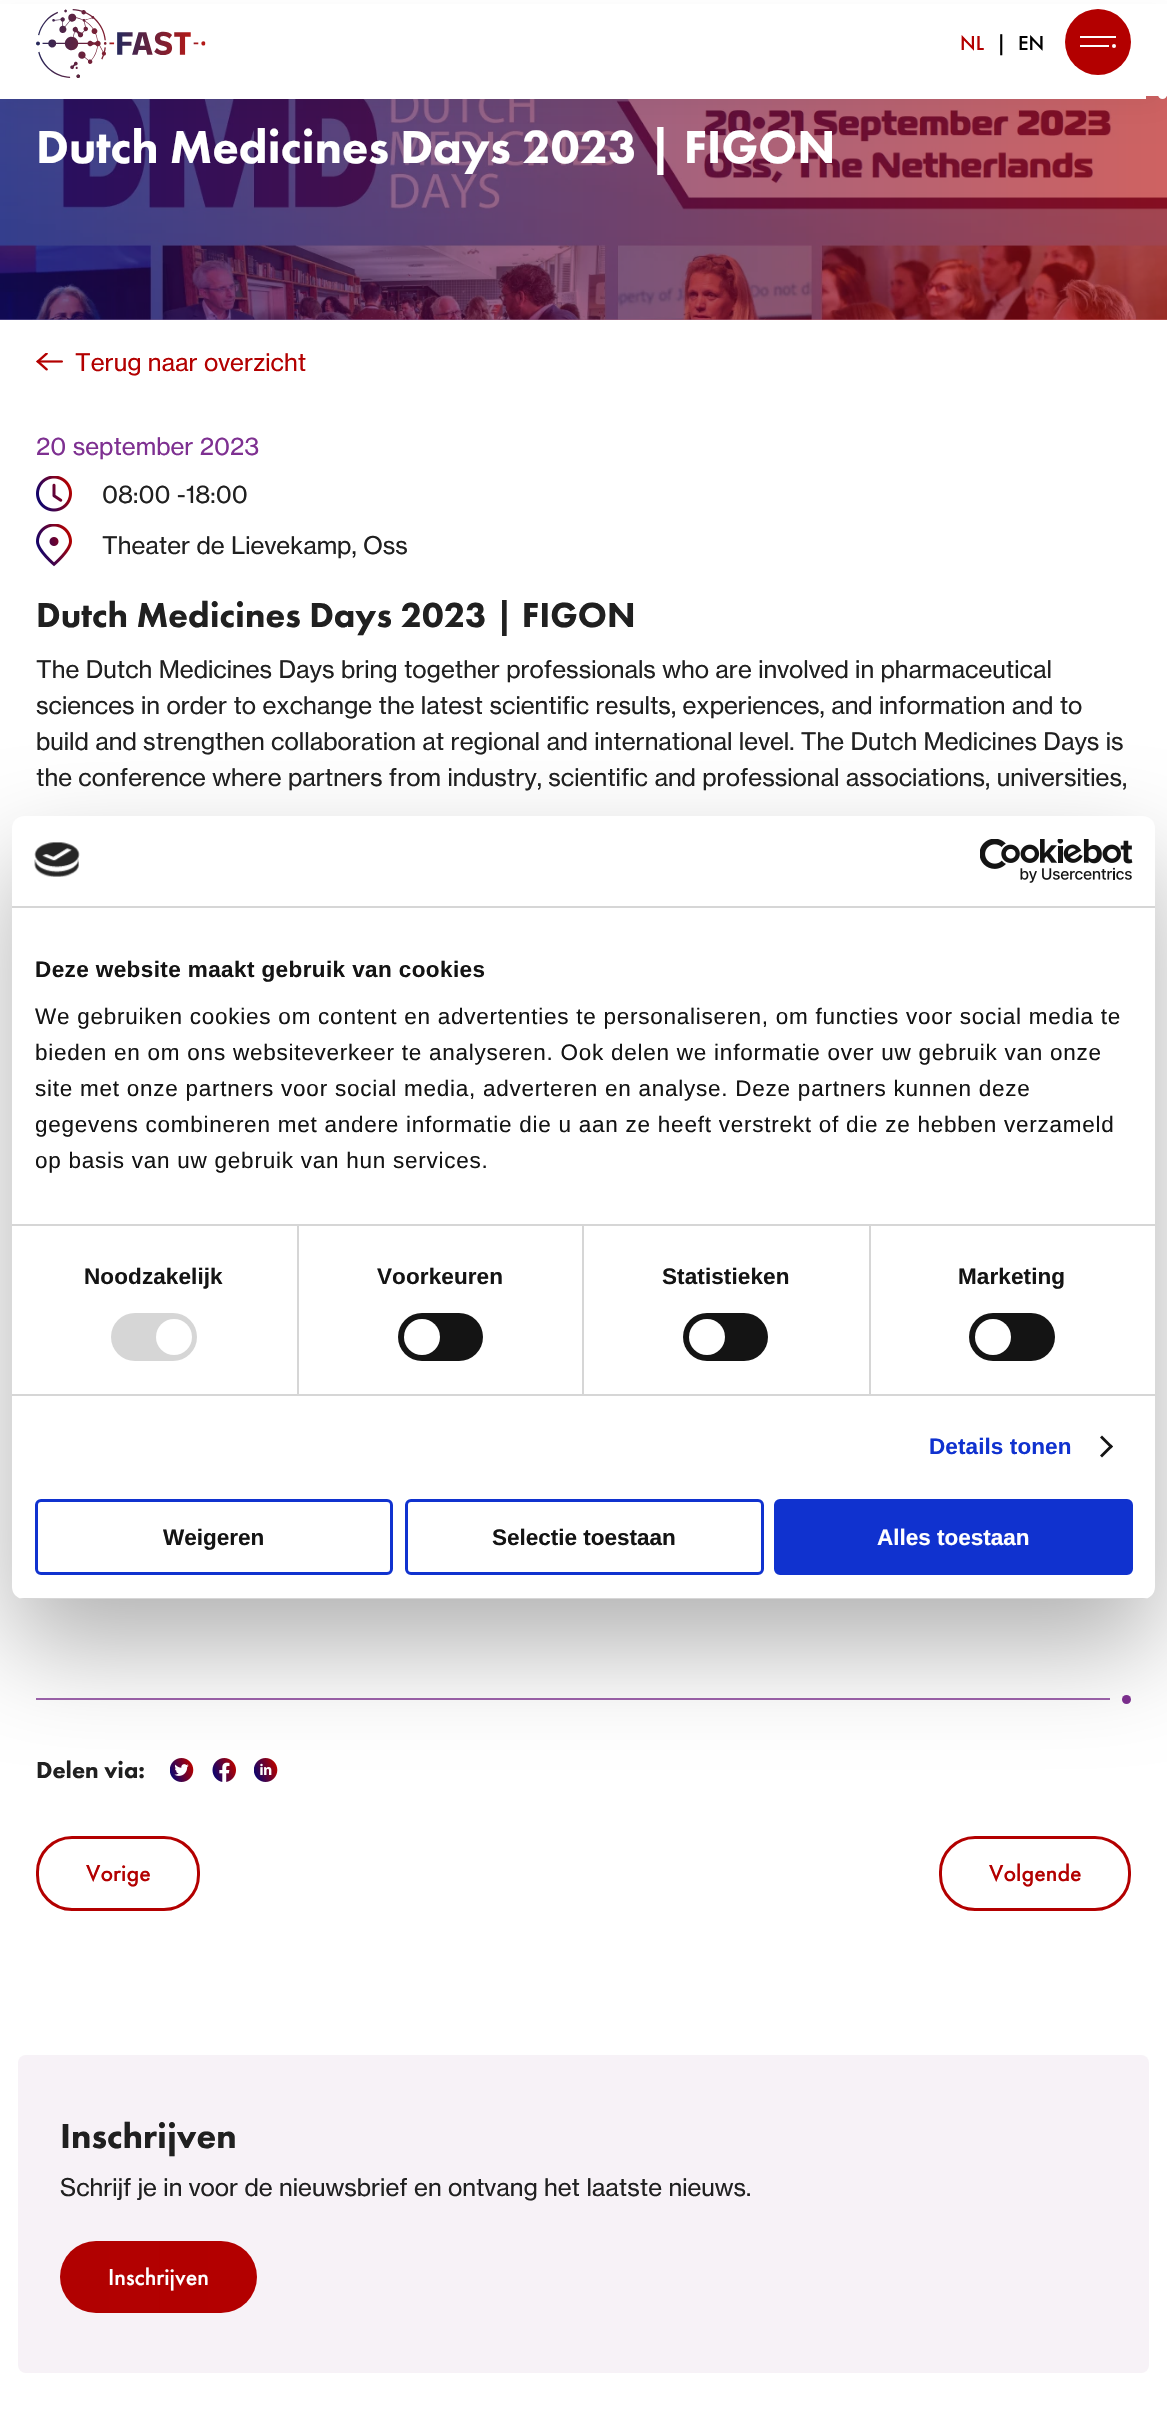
void draw(SkCanvas* canvas) {
	SkPaint fill;
	fill.setAntiAlias(true);
	auto makeFont = [&](const char* family, int weight, float size, bool italic = false) {
		SkFontStyle style(weight, SkFontStyle::kNormal_Width,
			italic ? SkFontStyle::kItalic_Slant : SkFontStyle::kUpright_Slant);
		SkFont result(fontMgr->matchFamilyStyle(family, style), size);
		result.setSubpixel(true);
		return result;
	};
	auto text = [&](const char* s, float x, float y, const SkFont& font) {
		canvas->drawString(s, x, y, font, fill);
	};
	auto spacedText = [&](const char* s, float x, float y, const SkFont& font, const SkPaint& ink, float letter, float word) {
		std::vector<SkGlyphID> glyphs(font.countText(s, strlen(s), SkTextEncoding::kUTF8));
		std::vector<float> xs(glyphs.size());
		font.textToGlyphs(s, strlen(s), SkTextEncoding::kUTF8, glyphs);
		font.getXPos(glyphs, xs, x);
		float extra = 0;
		for (size_t i = 0; i < glyphs.size(); i++) {
			xs[i] += extra;
			extra += letter + word * (glyphs[i] == font.unicharToGlyph(' '));
		}
		canvas->drawTextBlob(SkTextBlob::MakeFromPosHGlyphs(glyphs, xs, y, font), 0, 0, ink);
	};
	auto box = [&](float l, float t, float r, float b) {
		canvas->drawRect(SkRect::MakeLTRB(l, t, r, b), fill);
	};
	auto roundBox = [&](float l, float t, float r, float b, float radius) {
		canvas->drawRoundRect(SkRect::MakeLTRB(l, t, r, b), radius, radius, fill);
	};
	auto picture = [&](const char* path, float l, float t, float r, float b) {
		auto image = SkImages::DeferredFromEncodedData(SkData::MakeFromFileName(path));
		canvas->drawImageRect(image, SkRect::MakeLTRB(l, t, r, b), SkSamplingOptions());
	};
	canvas->clear(0xFFFFFFFF);
	picture("image1.png", 0, 96, 1167, 320);
	{
		const SkColor colors[] = {0x9E13046A, 0x9EB10101};
		const float stops[] = {0, 1};
		const SkPoint ends[] = {{-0.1f, 159}, {1167, 160}};
		fill.setShader(SkGradientShader::MakeLinear(ends, colors, stops, 2, SkTileMode::kClamp));
		fill.setAlpha(255);
	}
	box(0, 96, 1167, 320);
	fill.setShader(nullptr);
	fill.setColor(0x0A000000);
	fill.setMaskFilter(SkMaskFilter::MakeBlur(kNormal_SkBlurStyle, 12));
	canvas->drawRect(SkRect::MakeLTRB(0, 12, 1167, 108), fill);
	fill.setMaskFilter(nullptr);
	fill.setColor(0xFFFFFFFF);
	box(0, 4, 1167, 96);
	picture("image0.png", 36, 9, 206, 78);
	fill.setColor(0xFFB30000);
	canvas->drawCircle(1098, 42, 33, fill);
	fill.setColor(0xFFFFFFFF);
	box(1080, 36, 1116, 38);
	box(1080, 45, 1109, 47);
	canvas->drawCircle(1114, 46, 2, fill);
	box(0, 96, 1146, 99);
	canvas->drawCircle(1162.5f, 94.5f, 4.5f, fill);
	picture("image2.png", 36, 353, 63, 371);
	picture("image3.png", 36, 476, 72, 512);
	picture("image4.png", 36, 524, 72, 567);
	fill.setColor(0xFF9E64AD);
	box(36, 1698, 1110, 1700);
	fill.setColor(0xFF7E3091);
	canvas->drawCircle(1126.5f, 1699.5f, 4.5f, fill);
	picture("image5.png", 170, 1758, 194, 1782);
	picture("image6.png", 212, 1758, 236, 1782);
	picture("image7.png", 254, 1758, 278, 1782);
	fill.setStyle(SkPaint::kStroke_Style);
	fill.setStrokeWidth(3);
	fill.setColor(0xFFB30000);
	canvas->drawRoundRect(SkRect::MakeLTRB(37.5f, 1837.5f, 198.5f, 1909.5f), 34.5f, 34.5f, fill);
	canvas->drawRoundRect(SkRect::MakeLTRB(940.5f, 1837.5f, 1129.5f, 1909.5f), 34.5f, 34.5f, fill);
	fill.setStyle(SkPaint::kFill_Style);
	fill.setColor(0x4D000000);
	fill.setMaskFilter(SkMaskFilter::MakeBlur(kNormal_SkBlurStyle, 51));
	canvas->drawRoundRect(SkRect::MakeLTRB(12, 864, 1155, 1647), 12, 12, fill);
	fill.setMaskFilter(nullptr);
	fill.setColor(0xFFFFFFFF);
	roundBox(12, 816, 1155, 1599, 12);
	fill.setColor(0xFFD6D6D6);
	box(12, 906, 1155, 908);
	picture("image8.png", 34, 842, 80, 877);
	picture("image9.png", 980, 839, 1133, 883);
	box(12, 1224, 1155, 1226);
	box(12, 1394, 1155, 1396);
	box(297, 1226, 299, 1394);
	roundBox(111, 1313, 197, 1361, 24);
	fill.setColor(0xFFFFFFFF);
	canvas->drawCircle(174, 1337, 18, fill);
	fill.setColor(0xFFD6D6D6);
	box(582, 1226, 584, 1394);
	fill.setColor(0xFF141414);
	roundBox(398, 1313, 483, 1361, 24);
	fill.setColor(0xFFFFFFFF);
	canvas->drawCircle(422, 1337, 18, fill);
	fill.setColor(0xFFD6D6D6);
	box(869, 1226, 871, 1394);
	fill.setColor(0xFF141414);
	roundBox(683, 1313, 768, 1361, 24);
	fill.setColor(0xFFFFFFFF);
	canvas->drawCircle(707, 1337, 18, fill);
	fill.setColor(0xFF141414);
	roundBox(969, 1313, 1055, 1361, 24);
	fill.setColor(0xFFFFFFFF);
	canvas->drawCircle(993, 1337, 18, fill);
	fill.setColor(0xFF141414);
	canvas->drawPath(SkPathBuilder().moveTo(1102, 1435.5f).lineTo(1113, 1446.5f).lineTo(1111, 1448.5f).lineTo(1100, 1437.5f).close().detach(), fill);
	canvas->drawPath(SkPathBuilder().moveTo(1111, 1444.5f).lineTo(1113, 1446.5f).lineTo(1102, 1457.5f).lineTo(1100, 1455.5f).close().detach(), fill);
	canvas->save();
	canvas->clipPath(SkPathBuilder().moveTo(24, 816).lineTo(1143, 816).cubicTo(1149.5f, 816, 1155, 821.5f, 1155, 828).lineTo(1155, 1587).cubicTo(1155, 1593.5f, 1149.5f, 1599, 1143, 1599).lineTo(24, 1599).cubicTo(17.5f, 1599, 12, 1593.5f, 12, 1587).lineTo(12, 828).cubicTo(12, 821.5f, 17.5f, 816, 24, 816).close().detach(), true);
	fill.setColor(0xFFD6D6D6);
	box(12, 1598, 1155, 1599);
	canvas->restore();
	fill.setStyle(SkPaint::kStroke_Style);
	fill.setColor(0xFF1032CF);
	canvas->drawRoundRect(SkRect::MakeLTRB(36.5f, 1500.5f, 391.5f, 1573.5f), 4.5f, 4.5f, fill);
	canvas->drawRoundRect(SkRect::MakeLTRB(406.5f, 1500.5f, 762.5f, 1573.5f), 4.5f, 4.5f, fill);
	fill.setStyle(SkPaint::kFill_Style);
	canvas->drawRoundRect(SkRect::MakeLTRB(775.5f, 1500.5f, 1131.5f, 1573.5f), 4.5f, 4.5f, fill);
	fill.setStyle(SkPaint::kStroke_Style);
	canvas->drawRoundRect(SkRect::MakeLTRB(775.5f, 1500.5f, 1131.5f, 1573.5f), 4.5f, 4.5f, fill);
	fill.setStyle(SkPaint::kFill_Style);
	fill.setColor(0xFFF7F2F7);
	roundBox(18, 2055, 1149, 2373, 8);
	{
		const SkColor colors[] = {0xFF13046A, 0xFFB10101, 0xFFB30000};
		const float stops[] = {0, 0.5f, 1};
		const SkPoint ends[] = {{-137, 2277}, {257, 2277}};
		fill.setShader(SkGradientShader::MakeLinear(ends, colors, stops, 3, SkTileMode::kClamp));
		fill.setAlpha(255);
	}
	roundBox(60, 2241, 257, 2313, 36);
	auto font1 = makeFont("Futura PT", 500, 21);
	fill.setShader(nullptr);
	fill.setColor(0xFFB30000);
	text("NL", 960, 50, font1);
	fill.setColor(0xFF000000);
	text("|", 996, 50, font1);
	text("EN", 1018, 50, font1);
	auto font2 = makeFont("Futura PT", 900, 48);
	fill.setColor(0xFFFFFFFF);
	text("Dutch Medicines Days 2023 | FIGON", 36, 163, font2);
	auto font3 = makeFont("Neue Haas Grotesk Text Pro", 400, 24);
	fill.setColor(0xFFB30000);
	text("Terug naar overzicht", 75, 371, font3);
	fill.setColor(0xFF7E3091);
	text("20 september 2023", 36, 455, font3);
	fill.setColor(0xFF202020);
	text("08:00 -18:00", 102, 503, font3);
	text("Theater de Lievekamp, Oss", 102, 554, font3);
	auto font4 = makeFont("Futura PT", 900, 36);
	text("Dutch Medicines Days 2023 | FIGON", 36, 627, font4);
	text("The Dutch Medicines Days bring together professionals who are involved in pharmaceutical", 36, 678, font3);
	text("sciences in order to exchange the latest scientific results, experiences, and information and to", 36, 714, font3);
	text("build and strengthen collaboration at regional and international level. The Dutch Medicines Days is", 36, 750, font3);
	text("the conference where partners from industry, scientific and professional associations, universities,", 36, 786, font3);
	auto font5 = makeFont("Futura PT", 900, 24);
	text("Delen via:", 36, 1778, font5);
	auto font6 = makeFont("Futura PT", 500, 24);
	fill.setColor(0xFFB30000);
	text("Vorige", 86, 1881, font6);
	text("Volgende", 989, 1881, font6);
	auto font7 = makeFont("Liberation Sans", 700, 22.5f);
	fill.setColor(0xFF141414);
	spacedText("Deze website maakt gebruik van cookies", 35, 977, font7, fill, 0.4f, 0);
	auto font8 = makeFont("Liberation Sans", 400, 22.5f);
	spacedText("We gebruiken cookies om content en advertenties te personaliseren, om functies voor social media te", 35, 1024, font8, fill, 0.75f, 0);
	spacedText("bieden en om ons websiteverkeer te analyseren. Ook delen we informatie over uw gebruik van onze", 35, 1060, font8, fill, 0.75f, 0);
	spacedText("site met onze partners voor social media, adverteren en analyse. Deze partners kunnen deze", 35, 1096, font8, fill, 0.75f, 0);
	spacedText("gegevens combineren met andere informatie die u aan ze heeft verstrekt of die ze hebben verzameld", 35, 1132, font8, fill, 0.75f, 0);
	spacedText("op basis van uw gebruik van hun services.", 35, 1168, font8, fill, 0.75f, 0);
	spacedText("Noodzakelijk", 84, 1284, font7, fill, 0.1f, 0);
	spacedText("Voorkeuren", 377, 1284, font7, fill, 0.1f, 0);
	spacedText("Statistieken", 662, 1284, font7, fill, 0.1f, 0);
	spacedText("Marketing", 958, 1284, font7, fill, 0.1f, 0);
	fill.setColor(0xFF1032CF);
	spacedText("Details tonen", 929, 1454, font7, fill, 0.1f, 0);
	fill.setColor(0xFF141414);
	text("Weigeren", 163, 1545, font7);
	text("Selectie toestaan", 492, 1545, font7);
	fill.setColor(0xFFFFFFFF);
	text("Alles toestaan", 877, 1545, font7);
	fill.setColor(0xFF202020);
	text("Inschrijven", 60, 2148, font4);
	text("Schrijf je in voor de nieuwsbrief en ontvang het laatste nieuws.", 60, 2196, font3);
	fill.setColor(0xFFFFFFFF);
	text("Inschrijven", 108, 2285, font6);
}
